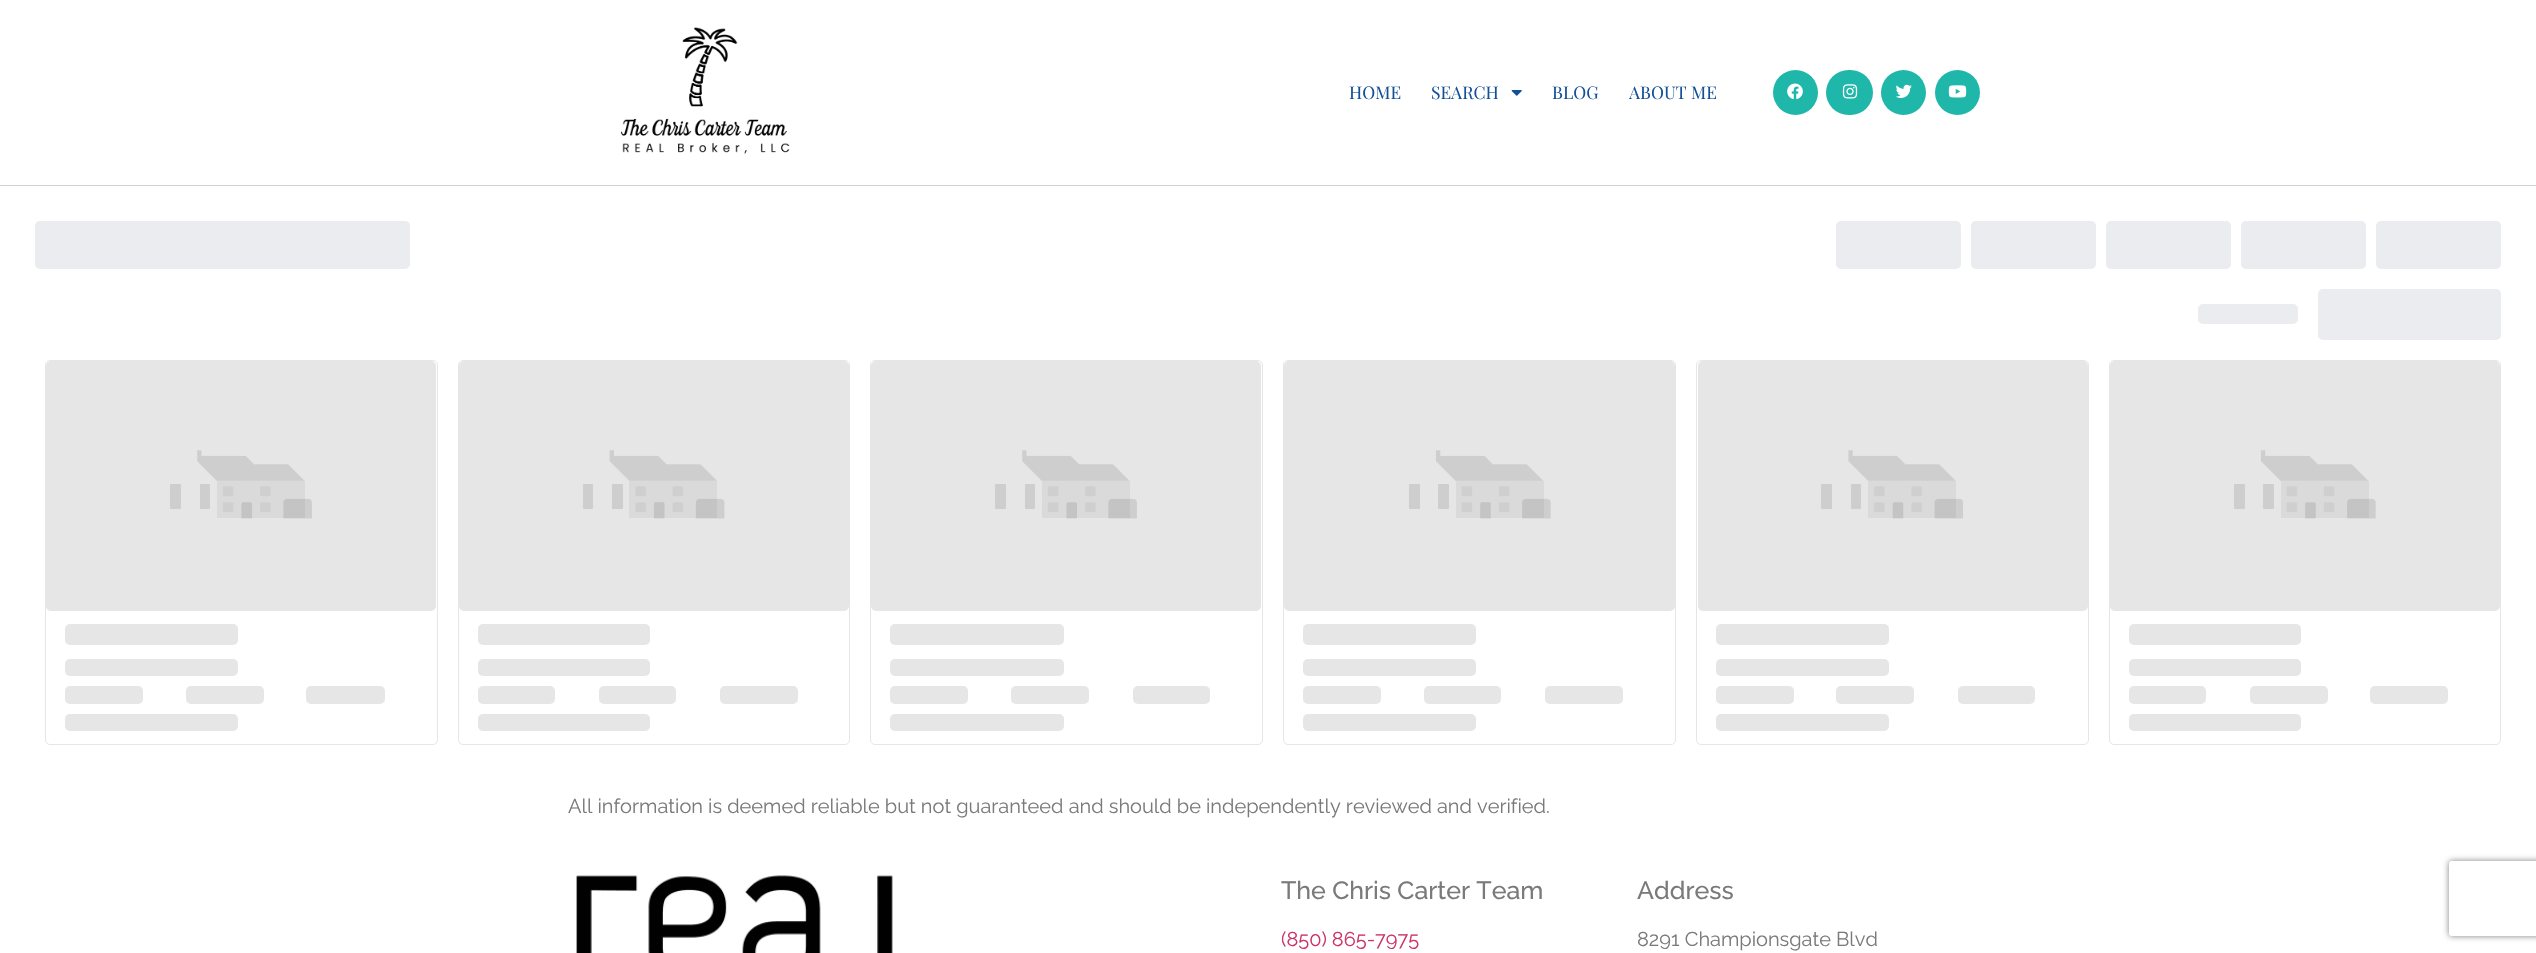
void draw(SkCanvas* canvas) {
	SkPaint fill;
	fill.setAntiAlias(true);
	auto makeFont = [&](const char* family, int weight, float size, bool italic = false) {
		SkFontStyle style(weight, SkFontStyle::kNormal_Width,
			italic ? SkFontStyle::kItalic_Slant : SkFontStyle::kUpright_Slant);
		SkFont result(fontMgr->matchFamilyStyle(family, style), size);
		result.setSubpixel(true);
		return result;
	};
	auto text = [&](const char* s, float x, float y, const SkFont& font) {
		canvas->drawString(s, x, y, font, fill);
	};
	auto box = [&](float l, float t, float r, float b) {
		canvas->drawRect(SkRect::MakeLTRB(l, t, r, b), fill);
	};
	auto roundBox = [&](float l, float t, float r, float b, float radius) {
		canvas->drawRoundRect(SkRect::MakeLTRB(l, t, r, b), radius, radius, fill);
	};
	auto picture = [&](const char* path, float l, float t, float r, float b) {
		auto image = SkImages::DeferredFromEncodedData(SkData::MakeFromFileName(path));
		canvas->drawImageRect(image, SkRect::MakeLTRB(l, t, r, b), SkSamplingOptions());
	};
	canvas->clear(0xFFFFFFFF);
	fill.setColor(0xFFD3D3D3);
	box(0, 185, 2536, 186);
	picture("image0.png", 621, 27, 790, 154);
	picture("image1.png", 1511, 90, 1522, 96);
	fill.setColor(0xFF20B7AB);
	canvas->drawCircle(1795.5f, 92.5f, 22.5f, fill);
	picture("image2.png", 1787, 83, 1803, 100);
	roundBox(1826, 70, 1873, 115, 22.5f);
	picture("image3.png", 1842, 84, 1858, 99);
	canvas->drawCircle(1903.5f, 92.5f, 22.5f, fill);
	picture("image4.png", 1895, 84, 1912, 98);
	canvas->drawCircle(1957.5f, 92.5f, 22.5f, fill);
	picture("image5.png", 1948, 85, 1967, 98);
	fill.setColor(0xFFEAECF0);
	roundBox(35, 221, 410, 269, 5);
	roundBox(1836, 221, 1961, 269, 5);
	roundBox(1971, 221, 2096, 269, 5);
	roundBox(2106, 221, 2231, 269, 5);
	roundBox(2241, 221, 2366, 269, 5);
	roundBox(2376, 221, 2501, 269, 5);
	roundBox(2198, 304, 2298, 324, 5);
	roundBox(2318, 289, 2501, 340, 5);
	fill.setStyle(SkPaint::kStroke_Style);
	fill.setStrokeWidth(1);
	fill.setColor(0xFFE6E6E6);
	canvas->drawRoundRect(SkRect::MakeLTRB(45.5f, 360.5f, 437.5f, 744.5f), 4.5f, 4.5f, fill);
	canvas->save();
	canvas->clipPath(SkPathBuilder().moveTo(50, 361).lineTo(432, 361).cubicTo(434, 361, 436, 363, 436, 365).lineTo(436, 740).cubicTo(436, 742, 434, 744, 432, 744).lineTo(50, 744).cubicTo(48, 744, 46, 742, 46, 740).lineTo(46, 365).cubicTo(46, 363, 48, 361, 50, 361).close().detach(), true);
	fill.setStyle(SkPaint::kFill_Style);
	roundBox(46, 361, 436, 611, 5);
	canvas->restore();
	picture("image6.png", 170, 450, 312, 519);
	roundBox(65, 624, 238, 645, 5);
	roundBox(65, 659, 238, 676, 5);
	roundBox(65, 686, 143, 704, 5);
	roundBox(186, 686, 264, 704, 5);
	roundBox(306, 686, 385, 704, 5);
	roundBox(65, 714, 238, 731, 5);
	fill.setStyle(SkPaint::kStroke_Style);
	canvas->drawRoundRect(SkRect::MakeLTRB(458.5f, 360.5f, 849.5f, 744.5f), 4.5f, 4.5f, fill);
	canvas->save();
	canvas->clipPath(SkPathBuilder().moveTo(463, 361).lineTo(845, 361).cubicTo(847, 361, 849, 363, 849, 365).lineTo(849, 740).cubicTo(849, 742, 847, 744, 845, 744).lineTo(463, 744).cubicTo(461, 744, 459, 742, 459, 740).lineTo(459, 365).cubicTo(459, 363, 461, 361, 463, 361).close().detach(), true);
	fill.setStyle(SkPaint::kFill_Style);
	roundBox(459, 361, 849, 611, 5);
	canvas->restore();
	picture("image7.png", 583, 450, 725, 519);
	roundBox(478, 624, 650, 645, 5);
	roundBox(478, 659, 650, 676, 5);
	roundBox(478, 686, 555, 704, 5);
	roundBox(599, 686, 676, 704, 5);
	roundBox(720, 686, 798, 704, 5);
	roundBox(478, 714, 650, 731, 5);
	fill.setStyle(SkPaint::kStroke_Style);
	canvas->drawRoundRect(SkRect::MakeLTRB(870.5f, 360.5f, 1262.5f, 744.5f), 4.5f, 4.5f, fill);
	canvas->save();
	canvas->clipPath(SkPathBuilder().moveTo(875, 361).lineTo(1257, 361).cubicTo(1259, 361, 1261, 363, 1261, 365).lineTo(1261, 740).cubicTo(1261, 742, 1259, 744, 1257, 744).lineTo(875, 744).cubicTo(873, 744, 871, 742, 871, 740).lineTo(871, 365).cubicTo(871, 363, 873, 361, 875, 361).close().detach(), true);
	fill.setStyle(SkPaint::kFill_Style);
	roundBox(871, 361, 1261, 611, 5);
	canvas->restore();
	picture("image6.png", 995, 450, 1137, 519);
	roundBox(890, 624, 1064, 645, 5);
	roundBox(890, 659, 1064, 676, 5);
	roundBox(890, 686, 968, 704, 5);
	roundBox(1011, 686, 1089, 704, 5);
	roundBox(1133, 686, 1210, 704, 5);
	roundBox(890, 714, 1064, 731, 5);
	fill.setStyle(SkPaint::kStroke_Style);
	canvas->drawRoundRect(SkRect::MakeLTRB(1283.5f, 360.5f, 1675.5f, 744.5f), 4.5f, 4.5f, fill);
	canvas->save();
	canvas->clipPath(SkPathBuilder().moveTo(1288, 361).lineTo(1671, 361).cubicTo(1673, 361, 1675, 363, 1675, 365).lineTo(1675, 740).cubicTo(1675, 742, 1673, 744, 1671, 744).lineTo(1288, 744).cubicTo(1286, 744, 1284, 742, 1284, 740).lineTo(1284, 365).cubicTo(1284, 363, 1286, 361, 1288, 361).close().detach(), true);
	fill.setStyle(SkPaint::kFill_Style);
	roundBox(1284, 361, 1675, 611, 5);
	canvas->restore();
	picture("image8.png", 1409, 450, 1551, 519);
	roundBox(1303, 624, 1476, 645, 5);
	roundBox(1303, 659, 1476, 676, 5);
	roundBox(1303, 686, 1381, 704, 5);
	roundBox(1424, 686, 1501, 704, 5);
	roundBox(1545, 686, 1623, 704, 5);
	roundBox(1303, 714, 1476, 731, 5);
	fill.setStyle(SkPaint::kStroke_Style);
	canvas->drawRoundRect(SkRect::MakeLTRB(1696.5f, 360.5f, 2088.5f, 744.5f), 4.5f, 4.5f, fill);
	canvas->save();
	canvas->clipPath(SkPathBuilder().moveTo(1702, 361).lineTo(2084, 361).cubicTo(2086, 361, 2088, 363, 2088, 365).lineTo(2088, 740).cubicTo(2088, 742, 2086, 744, 2084, 744).lineTo(1702, 744).cubicTo(1700, 744, 1698, 742, 1698, 740).lineTo(1698, 365).cubicTo(1698, 363, 1700, 361, 1702, 361).close().detach(), true);
	fill.setStyle(SkPaint::kFill_Style);
	roundBox(1698, 361, 2088, 611, 5);
	canvas->restore();
	picture("image9.png", 1821, 450, 1963, 519);
	roundBox(1716, 624, 1889, 645, 5);
	roundBox(1716, 659, 1889, 676, 5);
	roundBox(1716, 686, 1794, 704, 5);
	roundBox(1836, 686, 1914, 704, 5);
	roundBox(1958, 686, 2035, 704, 5);
	roundBox(1716, 714, 1889, 731, 5);
	fill.setStyle(SkPaint::kStroke_Style);
	canvas->drawRoundRect(SkRect::MakeLTRB(2109.5f, 360.5f, 2500.5f, 744.5f), 4.5f, 4.5f, fill);
	canvas->save();
	canvas->clipPath(SkPathBuilder().moveTo(2114, 361).lineTo(2496, 361).cubicTo(2498, 361, 2500, 363, 2500, 365).lineTo(2500, 740).cubicTo(2500, 742, 2498, 744, 2496, 744).lineTo(2114, 744).cubicTo(2112, 744, 2110, 742, 2110, 740).lineTo(2110, 365).cubicTo(2110, 363, 2112, 361, 2114, 361).close().detach(), true);
	fill.setStyle(SkPaint::kFill_Style);
	roundBox(2110, 361, 2500, 611, 5);
	canvas->restore();
	picture("image8.png", 2234, 450, 2376, 519);
	roundBox(2129, 624, 2301, 645, 5);
	roundBox(2129, 659, 2301, 676, 5);
	roundBox(2129, 686, 2206, 704, 5);
	roundBox(2250, 686, 2328, 704, 5);
	roundBox(2370, 686, 2448, 704, 5);
	roundBox(2129, 714, 2301, 731, 5);
	picture("image10.png", 576, 875, 893, 953);
	canvas->save();
	canvas->clipPath(SkPathBuilder(SkPathFillType::kEvenOdd).moveTo(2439, 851).lineTo(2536, 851).lineTo(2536, 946).lineTo(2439, 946).close().moveTo(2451.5f, 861).lineTo(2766.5f, 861).cubicTo(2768, 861, 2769, 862, 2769, 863.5f).lineTo(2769, 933.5f).cubicTo(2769, 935, 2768, 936, 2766.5f, 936).lineTo(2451.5f, 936).cubicTo(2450, 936, 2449, 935, 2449, 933.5f).lineTo(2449, 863.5f).cubicTo(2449, 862, 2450, 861, 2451.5f, 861).close().detach(), true);
	fill.setColor(0xFF808080);
	fill.setMaskFilter(SkMaskFilter::MakeBlur(kNormal_SkBlurStyle, 3));
	canvas->drawRoundRect(SkRect::MakeLTRB(2449, 861, 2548, 936), 2.5f, 2.5f, fill);
	fill.setMaskFilter(nullptr);
	canvas->restore();
	auto font1 = makeFont("Playfair Display", 400, 17.5f);
	fill.setColor(0xFF145098);
	text("HOME", 1349, 99, font1);
	text("SEARCH", 1431, 99, font1);
	text("BLOG", 1552, 99, font1);
	text("ABOUT ME", 1629, 99, font1);
	auto font2 = makeFont("Raleway", 400, 20);
	fill.setColor(0xFF7A7A7A);
	text("All information is deemed reliable but not guaranteed and should be independently reviewed and verified.", 568, 813, font2);
	auto font3 = makeFont("Raleway", 500, 25);
	text("The Chris Carter Team", 1281, 899, font3);
	fill.setColor(0xFFCC3366);
	text("(850) 865-7975", 1281, 946, font2);
	fill.setColor(0xFF7A7A7A);
	text("Address", 1637, 899, font3);
	text("8291 Championsgate Blvd", 1637, 946, font2);
}
